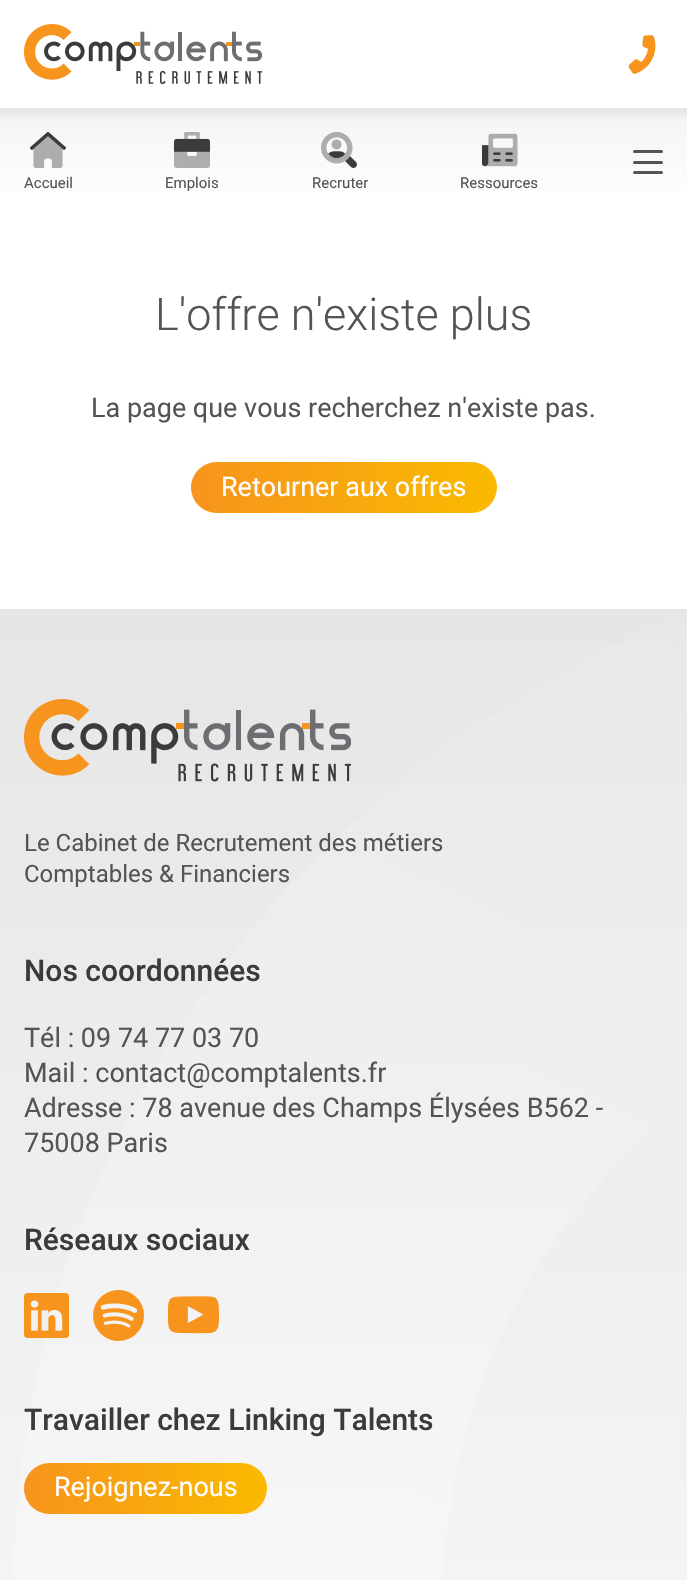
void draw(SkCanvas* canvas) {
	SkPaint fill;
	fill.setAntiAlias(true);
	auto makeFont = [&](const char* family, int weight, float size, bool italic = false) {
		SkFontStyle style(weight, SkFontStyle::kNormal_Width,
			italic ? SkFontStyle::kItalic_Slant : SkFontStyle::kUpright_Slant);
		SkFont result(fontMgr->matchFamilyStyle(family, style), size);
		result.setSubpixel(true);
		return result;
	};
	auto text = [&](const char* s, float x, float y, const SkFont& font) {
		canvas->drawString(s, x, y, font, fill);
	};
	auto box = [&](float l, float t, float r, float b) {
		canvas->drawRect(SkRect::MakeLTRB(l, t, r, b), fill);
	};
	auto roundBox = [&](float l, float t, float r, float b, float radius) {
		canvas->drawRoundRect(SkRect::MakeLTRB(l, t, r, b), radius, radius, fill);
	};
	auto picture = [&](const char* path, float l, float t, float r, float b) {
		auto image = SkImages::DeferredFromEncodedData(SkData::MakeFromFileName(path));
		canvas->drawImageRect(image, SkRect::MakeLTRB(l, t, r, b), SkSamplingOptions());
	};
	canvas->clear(0xFFFFFFFF);
	picture("image0.png", 24, 24, 263, 84);
	picture("image1.png", 628, 35, 656, 74);
	{
		const SkColor colors[] = {0xFFFFFFFF, 0xFFF6F6F6, 0xFFE3E3E3};
		const float stops[] = {0, 0.87f, 1};
		const SkPoint ends[] = {{344, 218}, {344, 108}};
		fill.setShader(SkGradientShader::MakeLinear(ends, colors, stops, 3, SkTileMode::kClamp));
		fill.setAlpha(255);
	}
	box(0, 108, 687, 191);
	fill.setShader(nullptr);
	fill.setColor(0xFF545456);
	roundBox(633, 150, 663, 153, 1.5f);
	roundBox(633, 161, 663, 164, 1.5f);
	roundBox(633, 171, 663, 174, 1.5f);
	picture("image2.png", 30, 132, 66, 168);
	picture("image3.png", 174, 132, 210, 168);
	picture("image4.png", 321, 132, 357, 168);
	picture("image5.png", 482, 133, 518, 167);
	{
		const SkColor colors[] = {0xFFF7941D, 0xFFFABA00};
		const float stops[] = {0, 1};
		const SkPoint ends[] = {{191, 488}, {497, 488}};
		fill.setShader(SkGradientShader::MakeLinear(ends, colors, stops, 2, SkTileMode::kClamp));
		fill.setAlpha(255);
	}
	roundBox(191, 462, 497, 513, 25.5f);
	{
		const SkColor colors[] = {0xFFE6E6E6, 0xFFF8F8F8};
		const float stops[] = {0, 1};
		const SkPoint ends[] = {{343, 609}, {344, 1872}};
		fill.setShader(SkGradientShader::MakeLinear(ends, colors, stops, 2, SkTileMode::kClamp));
		fill.setAlpha(255);
	}
	box(0, 609, 687, 1580);
	{
		const SkColor colors[] = {0x6EFFFFFF, 0x00FFFFFF};
		const float stops[] = {0, 1};
		const SkPoint ends[] = {{612, 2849}, {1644, 610}};
		fill.setShader(SkGradientShader::MakeLinear(ends, colors, stops, 2, SkTileMode::kClamp));
		fill.setAlpha(255);
	}
	canvas->drawPath(SkPathBuilder().moveTo(443, 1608).cubicTo(443, 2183, 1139, 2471, 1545, 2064).lineTo(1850, 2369).cubicTo(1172, 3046, 13, 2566, 13, 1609).cubicTo(13, 653, 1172, 171, 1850, 849).lineTo(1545, 1153).cubicTo(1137, 744, 443, 1032, 443, 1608).close().detach(), fill);
	picture("image6.png", 24, 699, 351, 782);
	picture("image7.png", 24, 1293, 69, 1338);
	picture("image8.png", 93, 1290, 144, 1341);
	picture("image9.png", 168, 1296, 219, 1334);
	{
		const SkColor colors[] = {0xFFF7941D, 0xFFFABA00};
		const float stops[] = {0, 1};
		const SkPoint ends[] = {{24, 1488}, {267, 1488}};
		fill.setShader(SkGradientShader::MakeLinear(ends, colors, stops, 2, SkTileMode::kClamp));
		fill.setAlpha(255);
	}
	roundBox(24, 1463, 267, 1514, 25.5f);
	auto font1 = makeFont("Roboto", 400, 15);
	fill.setShader(nullptr);
	fill.setColor(0xFF545456);
	text("Accueil", 24, 188, font1);
	text("Emplois", 165, 188, font1);
	text("Recruter", 312, 188, font1);
	text("Ressources", 460, 188, font1);
	auto font2 = makeFont("Roboto", 300, 45);
	text("L'offre n'existe plus", 155, 330, font2);
	auto font3 = makeFont("Roboto", 400, 27);
	text("La page que vous recherchez n'existe pas.", 91, 417, font3);
	fill.setColor(0xFFFFFFFF);
	text("Retourner aux offres", 221, 496, font3);
	auto font4 = makeFont("Roboto", 400, 24);
	fill.setColor(0xFF545456);
	text("Le Cabinet de Recrutement des métiers", 24, 851, font4);
	text("Comptables & Financiers", 24, 882, font4);
	auto font5 = makeFont("Roboto", 500, 30);
	fill.setColor(0xFF3B3B3C);
	text("Nos coordonnées", 24, 981, font5);
	fill.setColor(0xFF545456);
	text("Tél : 09 74 77 03 70", 24, 1047, font3);
	text("Mail : contact@comptalents.fr", 24, 1082, font3);
	text("Adresse : 78 avenue des Champs Élysées B562 -", 24, 1117, font3);
	text("75008 Paris", 24, 1152, font3);
	fill.setColor(0xFF3B3B3C);
	text("Réseaux sociaux", 24, 1250, font5);
	text("Travailler chez Linking Talents", 24, 1430, font5);
	fill.setColor(0xFFFFFFFF);
	text("Rejoignez-nous", 54, 1496, font3);
}
